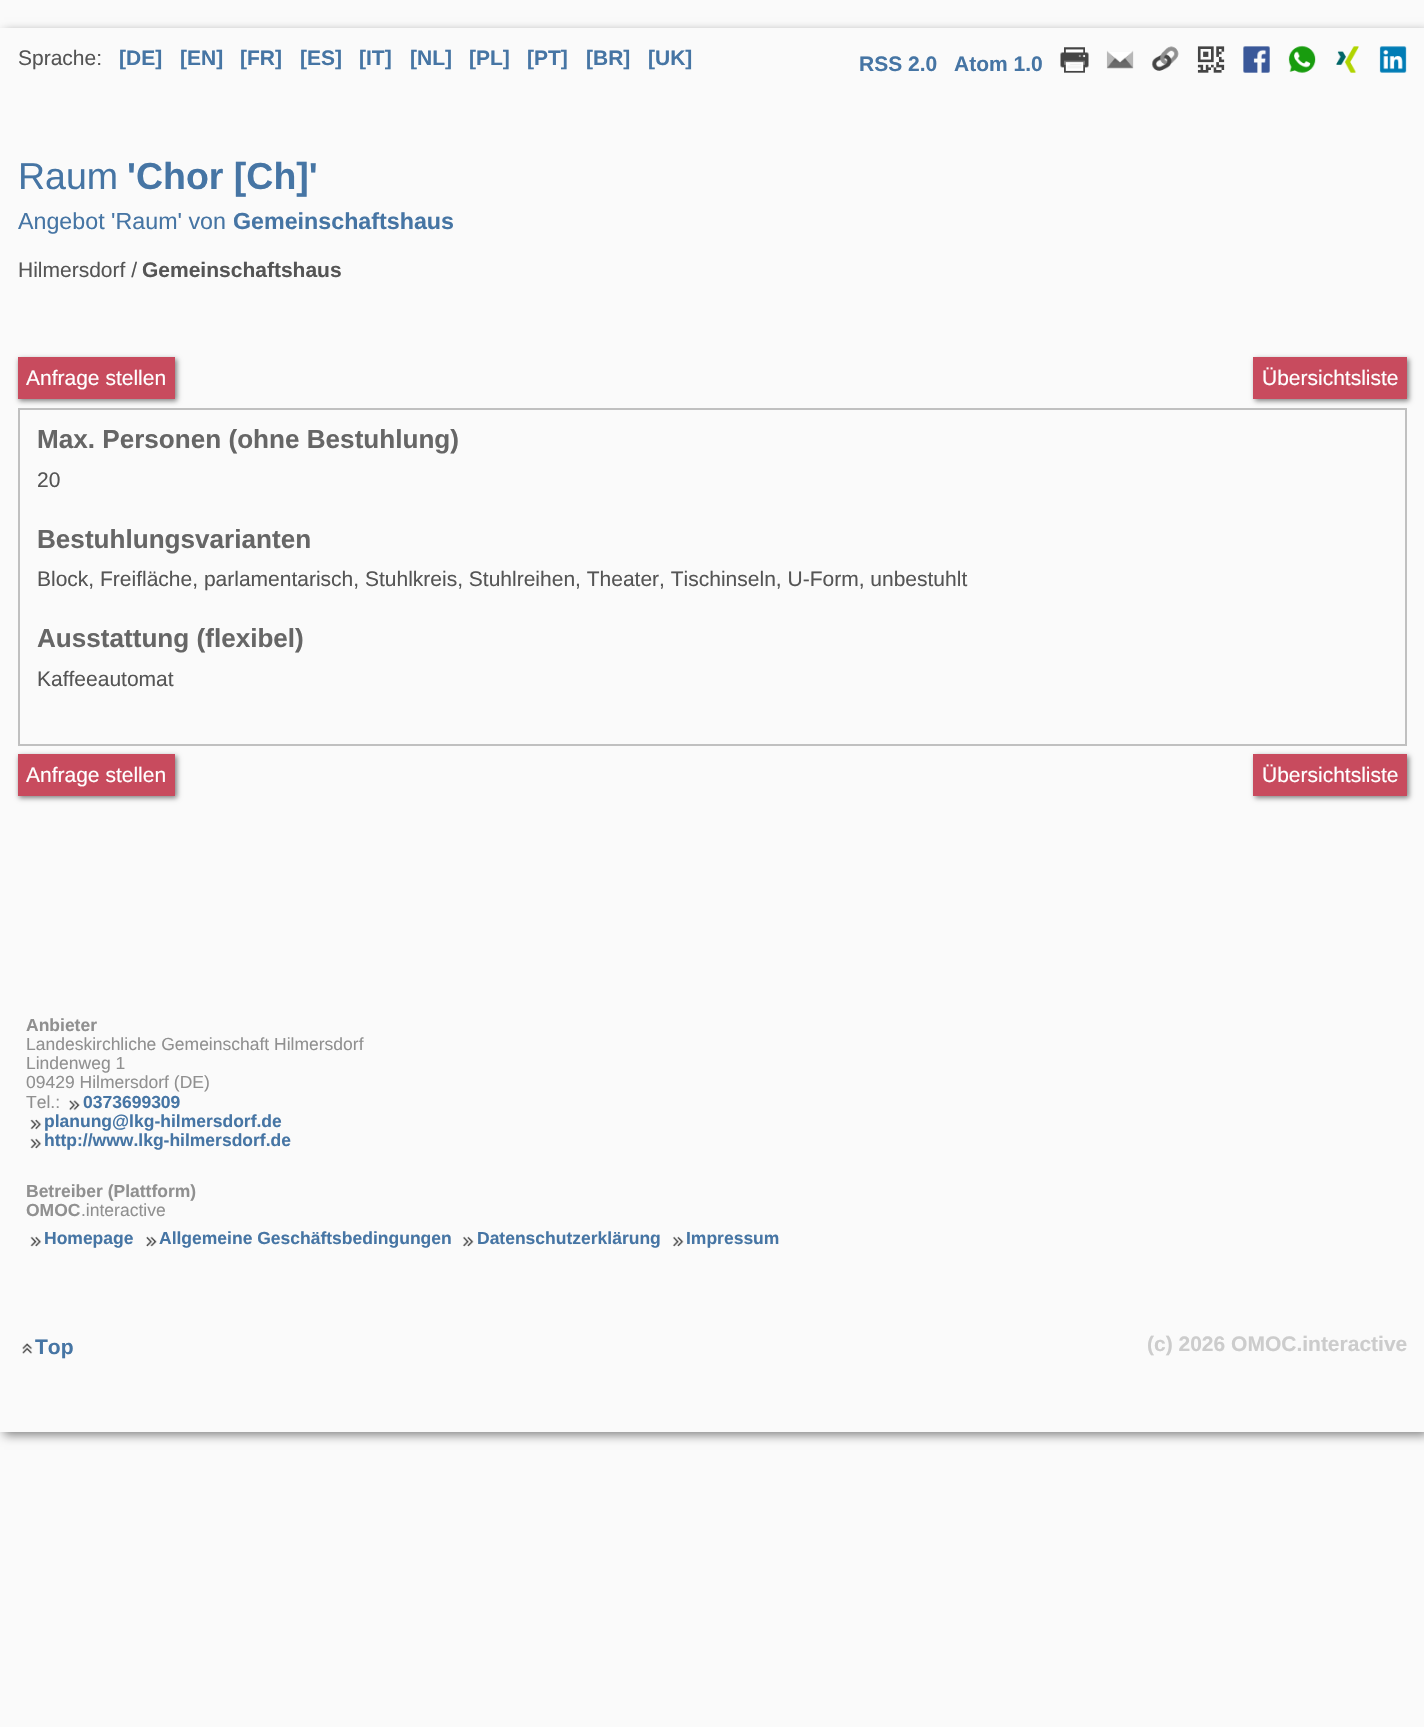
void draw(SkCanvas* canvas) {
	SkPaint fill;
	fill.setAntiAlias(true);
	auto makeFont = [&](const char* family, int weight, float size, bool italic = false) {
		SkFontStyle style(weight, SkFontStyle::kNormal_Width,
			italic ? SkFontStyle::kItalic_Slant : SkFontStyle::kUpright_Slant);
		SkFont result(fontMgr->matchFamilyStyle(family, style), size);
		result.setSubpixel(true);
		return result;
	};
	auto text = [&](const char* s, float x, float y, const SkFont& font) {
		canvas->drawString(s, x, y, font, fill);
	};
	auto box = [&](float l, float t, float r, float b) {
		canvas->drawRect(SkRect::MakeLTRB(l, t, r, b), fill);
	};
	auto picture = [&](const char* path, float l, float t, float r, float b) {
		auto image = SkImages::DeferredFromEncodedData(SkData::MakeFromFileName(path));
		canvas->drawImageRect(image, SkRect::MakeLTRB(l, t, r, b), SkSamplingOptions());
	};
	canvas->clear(0xFFFAFAFA);
	canvas->save();
	canvas->clipPath(SkPathBuilder(SkPathFillType::kEvenOdd).moveTo(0, 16).lineTo(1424, 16).lineTo(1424, 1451).lineTo(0, 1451).close().moveTo(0, 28).lineTo(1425, 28).lineTo(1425, 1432).lineTo(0, 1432).close().detach(), true);
	fill.setColor(0xFF808080);
	fill.setMaskFilter(SkMaskFilter::MakeBlur(kNormal_SkBlurStyle, 5));
	canvas->drawRect(SkRect::MakeLTRB(4, 32, 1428, 1435), fill);
	fill.setMaskFilter(nullptr);
	canvas->restore();
	fill.setColor(0xFFFAFAFA);
	box(0, 1431, 1424, 1432);
	picture("image0.png", 1060, 47, 1089, 73);
	picture("image1.png", 1106, 50, 1134, 69);
	picture("image2.png", 1151, 46, 1179, 71);
	picture("image3.png", 1197, 46, 1225, 73);
	picture("image4.png", 1243, 46, 1270, 73);
	picture("image5.png", 1288, 45, 1316, 73);
	picture("image6.png", 1336, 46, 1359, 73);
	picture("image7.png", 1379, 46, 1407, 73);
	fill.setStyle(SkPaint::kStroke_Style);
	fill.setStrokeWidth(2);
	fill.setColor(0xFFC0C0C0);
	canvas->drawRect(SkRect::MakeLTRB(19, 409, 1406, 745), fill);
	fill.setStyle(SkPaint::kFill_Style);
	fill.setColor(0xFF808080);
	fill.setMaskFilter(SkMaskFilter::MakeBlur(kNormal_SkBlurStyle, 2.5f));
	canvas->drawRect(SkRect::MakeLTRB(19, 359, 177, 401), fill);
	fill.setMaskFilter(nullptr);
	fill.setColor(0xFFC84B5E);
	box(18, 357, 175, 399);
	fill.setColor(0xFF808080);
	fill.setMaskFilter(SkMaskFilter::MakeBlur(kNormal_SkBlurStyle, 2.5f));
	canvas->drawRect(SkRect::MakeLTRB(1255, 359, 1409, 401), fill);
	fill.setMaskFilter(nullptr);
	fill.setColor(0xFFC84B5E);
	box(1253, 357, 1407, 399);
	fill.setColor(0xFF808080);
	fill.setMaskFilter(SkMaskFilter::MakeBlur(kNormal_SkBlurStyle, 2.5f));
	canvas->drawRect(SkRect::MakeLTRB(19, 756, 177, 798), fill);
	fill.setMaskFilter(nullptr);
	fill.setColor(0xFFC84B5E);
	box(18, 754, 175, 796);
	fill.setColor(0xFF808080);
	fill.setMaskFilter(SkMaskFilter::MakeBlur(kNormal_SkBlurStyle, 2.5f));
	canvas->drawRect(SkRect::MakeLTRB(1255, 756, 1409, 798), fill);
	fill.setMaskFilter(nullptr);
	fill.setColor(0xFFC84B5E);
	box(1253, 754, 1407, 796);
	picture("image8.png", 69, 1100, 80, 1111);
	picture("image9.png", 30, 1119, 42, 1130);
	picture("image10.png", 30, 1138, 42, 1149);
	picture("image10.png", 30, 1236, 42, 1247);
	picture("image11.png", 146, 1236, 157, 1247);
	picture("image12.png", 462, 1236, 474, 1247);
	picture("image13.png", 672, 1236, 684, 1247);
	picture("image14.png", 22, 1343, 33, 1354);
	auto font1 = makeFont("Liberation Sans", 400, 21);
	fill.setColor(0xFF555555);
	text("Sprache:", 18, 65, font1);
	auto font2 = makeFont("Liberation Sans", 700, 21);
	fill.setColor(0xFF4675A4);
	text("[DE]", 119, 65, font2);
	text("[EN]", 180, 65, font2);
	text("[FR]", 240, 65, font2);
	text("[ES]", 300, 65, font2);
	text("[IT]", 359, 65, font2);
	text("[NL]", 410, 65, font2);
	text("[PL]", 469, 65, font2);
	text("[PT]", 527, 65, font2);
	text("[BR]", 586, 65, font2);
	text("[UK]", 648, 65, font2);
	text("RSS 2.0", 859, 71, font2);
	text("Atom 1.0", 954, 71, font2);
	auto font3 = makeFont("Liberation Sans", 400, 37.5f);
	text("Raum", 18, 189, font3);
	auto font4 = makeFont("Liberation Sans", 700, 37.5f);
	text("'Chor [Ch]'", 127, 189, font4);
	auto font5 = makeFont("Liberation Sans", 400, 23.25f);
	text("Angebot 'Raum' von", 18, 229, font5);
	auto font6 = makeFont("Liberation Sans", 700, 23.25f);
	text("Gemeinschaftshaus", 233, 229, font6);
	fill.setColor(0xFF555555);
	text("Hilmersdorf /", 18, 277, font1);
	text("Gemeinschaftshaus", 142, 277, font2);
	fill.setColor(0xFFFFFFFF);
	text("Anfrage stellen", 26, 385, font1);
	text("Übersichtsliste", 1262, 385, font1);
	auto font7 = makeFont("Liberation Sans", 700, 26.1f);
	fill.setColor(0xFF666666);
	text("Max. Personen (ohne Bestuhlung)", 37, 448, font7);
	fill.setColor(0xFF555555);
	text("20", 37, 487, font1);
	fill.setColor(0xFF666666);
	text("Bestuhlungsvarianten", 37, 548, font7);
	fill.setColor(0xFF555555);
	text("Block, Freifläche, parlamentarisch, Stuhlkreis, Stuhlreihen, Theater, Tischinseln, U-Form, unbestuhlt", 37, 586, font1);
	fill.setColor(0xFF666666);
	text("Ausstattung (flexibel)", 37, 647, font7);
	fill.setColor(0xFF555555);
	text("Kaffeeautomat", 37, 686, font1);
	fill.setColor(0xFFFFFFFF);
	text("Anfrage stellen", 26, 782, font1);
	text("Übersichtsliste", 1262, 782, font1);
	auto font8 = makeFont("Liberation Sans", 700, 17.5f);
	fill.setColor(0xFF909090);
	text("Anbieter", 26, 1031, font8);
	auto font9 = makeFont("Liberation Sans", 400, 17.5f);
	text("Landeskirchliche Gemeinschaft Hilmersdorf", 26, 1050, font9);
	text("Lindenweg 1", 26, 1069, font9);
	text("09429 Hilmersdorf (DE)", 26, 1088, font9);
	text("Tel.:", 26, 1108, font9);
	fill.setColor(0xFF4675A4);
	text("0373699309", 83, 1108, font8);
	text("planung@lkg-hilmersdorf.de", 44, 1127, font8);
	text("http://www.lkg-hilmersdorf.de", 44, 1146, font8);
	fill.setColor(0xFF909090);
	text("Betreiber (Plattform)", 26, 1197, font8);
	text("OMOC", 26, 1216, font8);
	text(".interactive", 81, 1216, font9);
	fill.setColor(0xFF4675A4);
	text("Homepage", 44, 1244, font8);
	text("Allgemeine Geschäftsbedingungen", 159, 1244, font8);
	text("Datenschutzerklärung", 477, 1244, font8);
	text("Impressum", 686, 1244, font8);
	text("Top", 35, 1354, font2);
	fill.setColor(0xFFCCCCCC);
	text("(c) 2026 OMOC.interactive", 1147, 1351, font2);
}
